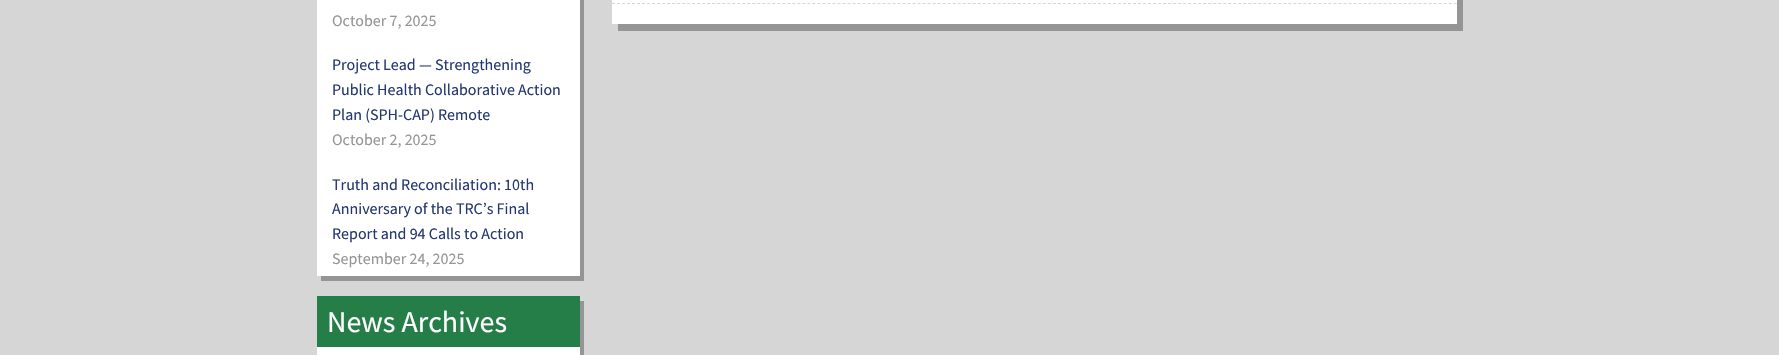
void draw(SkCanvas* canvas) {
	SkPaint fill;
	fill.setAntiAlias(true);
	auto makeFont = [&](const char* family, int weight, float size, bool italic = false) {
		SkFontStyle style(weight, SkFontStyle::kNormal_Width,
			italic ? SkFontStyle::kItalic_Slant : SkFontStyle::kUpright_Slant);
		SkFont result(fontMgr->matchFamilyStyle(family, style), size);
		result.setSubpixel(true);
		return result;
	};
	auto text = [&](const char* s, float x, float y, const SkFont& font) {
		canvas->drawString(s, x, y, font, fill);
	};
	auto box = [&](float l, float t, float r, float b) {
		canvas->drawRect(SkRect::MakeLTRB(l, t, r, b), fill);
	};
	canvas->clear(0xFFD6D6D7);
	fill.setColor(0xFF959595);
	canvas->drawPath(SkPathBuilder().moveTo(321, 276).lineTo(321, 281).lineTo(584, 281).lineTo(584, -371).lineTo(580, -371).lineTo(580, 276).close().detach(), fill);
	fill.setColor(0xFFFFFFFF);
	box(317, 0, 580, 276);
	fill.setColor(0xFF959595);
	canvas->drawPath(SkPathBuilder().moveTo(321, 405).lineTo(321, 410).lineTo(584, 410).lineTo(584, 301).lineTo(580, 301).lineTo(580, 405).close().detach(), fill);
	fill.setColor(0xFFFFFFFF);
	box(317, 347, 580, 355);
	fill.setColor(0xFF257E48);
	box(317, 296, 580, 347);
	fill.setColor(0xFF959595);
	canvas->drawPath(SkPathBuilder().moveTo(618, 24).lineTo(618, 31).lineTo(1463, 31).lineTo(1463, -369).lineTo(1457, -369).lineTo(1457, 24).close().detach(), fill);
	fill.setColor(0xFFFFFFFF);
	box(612, 0, 1457, 24);
	fill.setStyle(SkPaint::kStroke_Style);
	fill.setStrokeWidth(1);
	fill.setColor(0xFFD6D6D7);
	fill.setPathEffect(SkDashPathEffect::Make({{3, 2.01f}}, 0));
	canvas->drawPath(SkPathBuilder().moveTo(612, 3.5f).lineTo(1457, 3.5f).detach(), fill);
	fill.setPathEffect(nullptr);
	auto font1 = makeFont("Source Sans Pro", 400, 16);
	fill.setStyle(SkPaint::kFill_Style);
	fill.setColor(0xFF959595);
	text("October 7, 2025", 332, 26, font1);
	fill.setColor(0xFF23386F);
	text("Project Lead — Strengthening", 332, 70, font1);
	text("Public Health Collaborative Action", 332, 95, font1);
	text("Plan (SPH-CAP) Remote", 332, 120, font1);
	fill.setColor(0xFF959595);
	text("October 2, 2025", 332, 145, font1);
	fill.setColor(0xFF23386F);
	text("Truth and Reconciliation: 10th", 332, 190, font1);
	text("Anniversary of the TRC’s Final", 332, 214, font1);
	text("Report and 94 Calls to Action", 332, 239, font1);
	fill.setColor(0xFF959595);
	text("September 24, 2025", 332, 264, font1);
	auto font2 = makeFont("Source Sans Pro", 400, 30);
	fill.setColor(0xFFFFFFFF);
	text("News Archives", 327, 332, font2);
}
